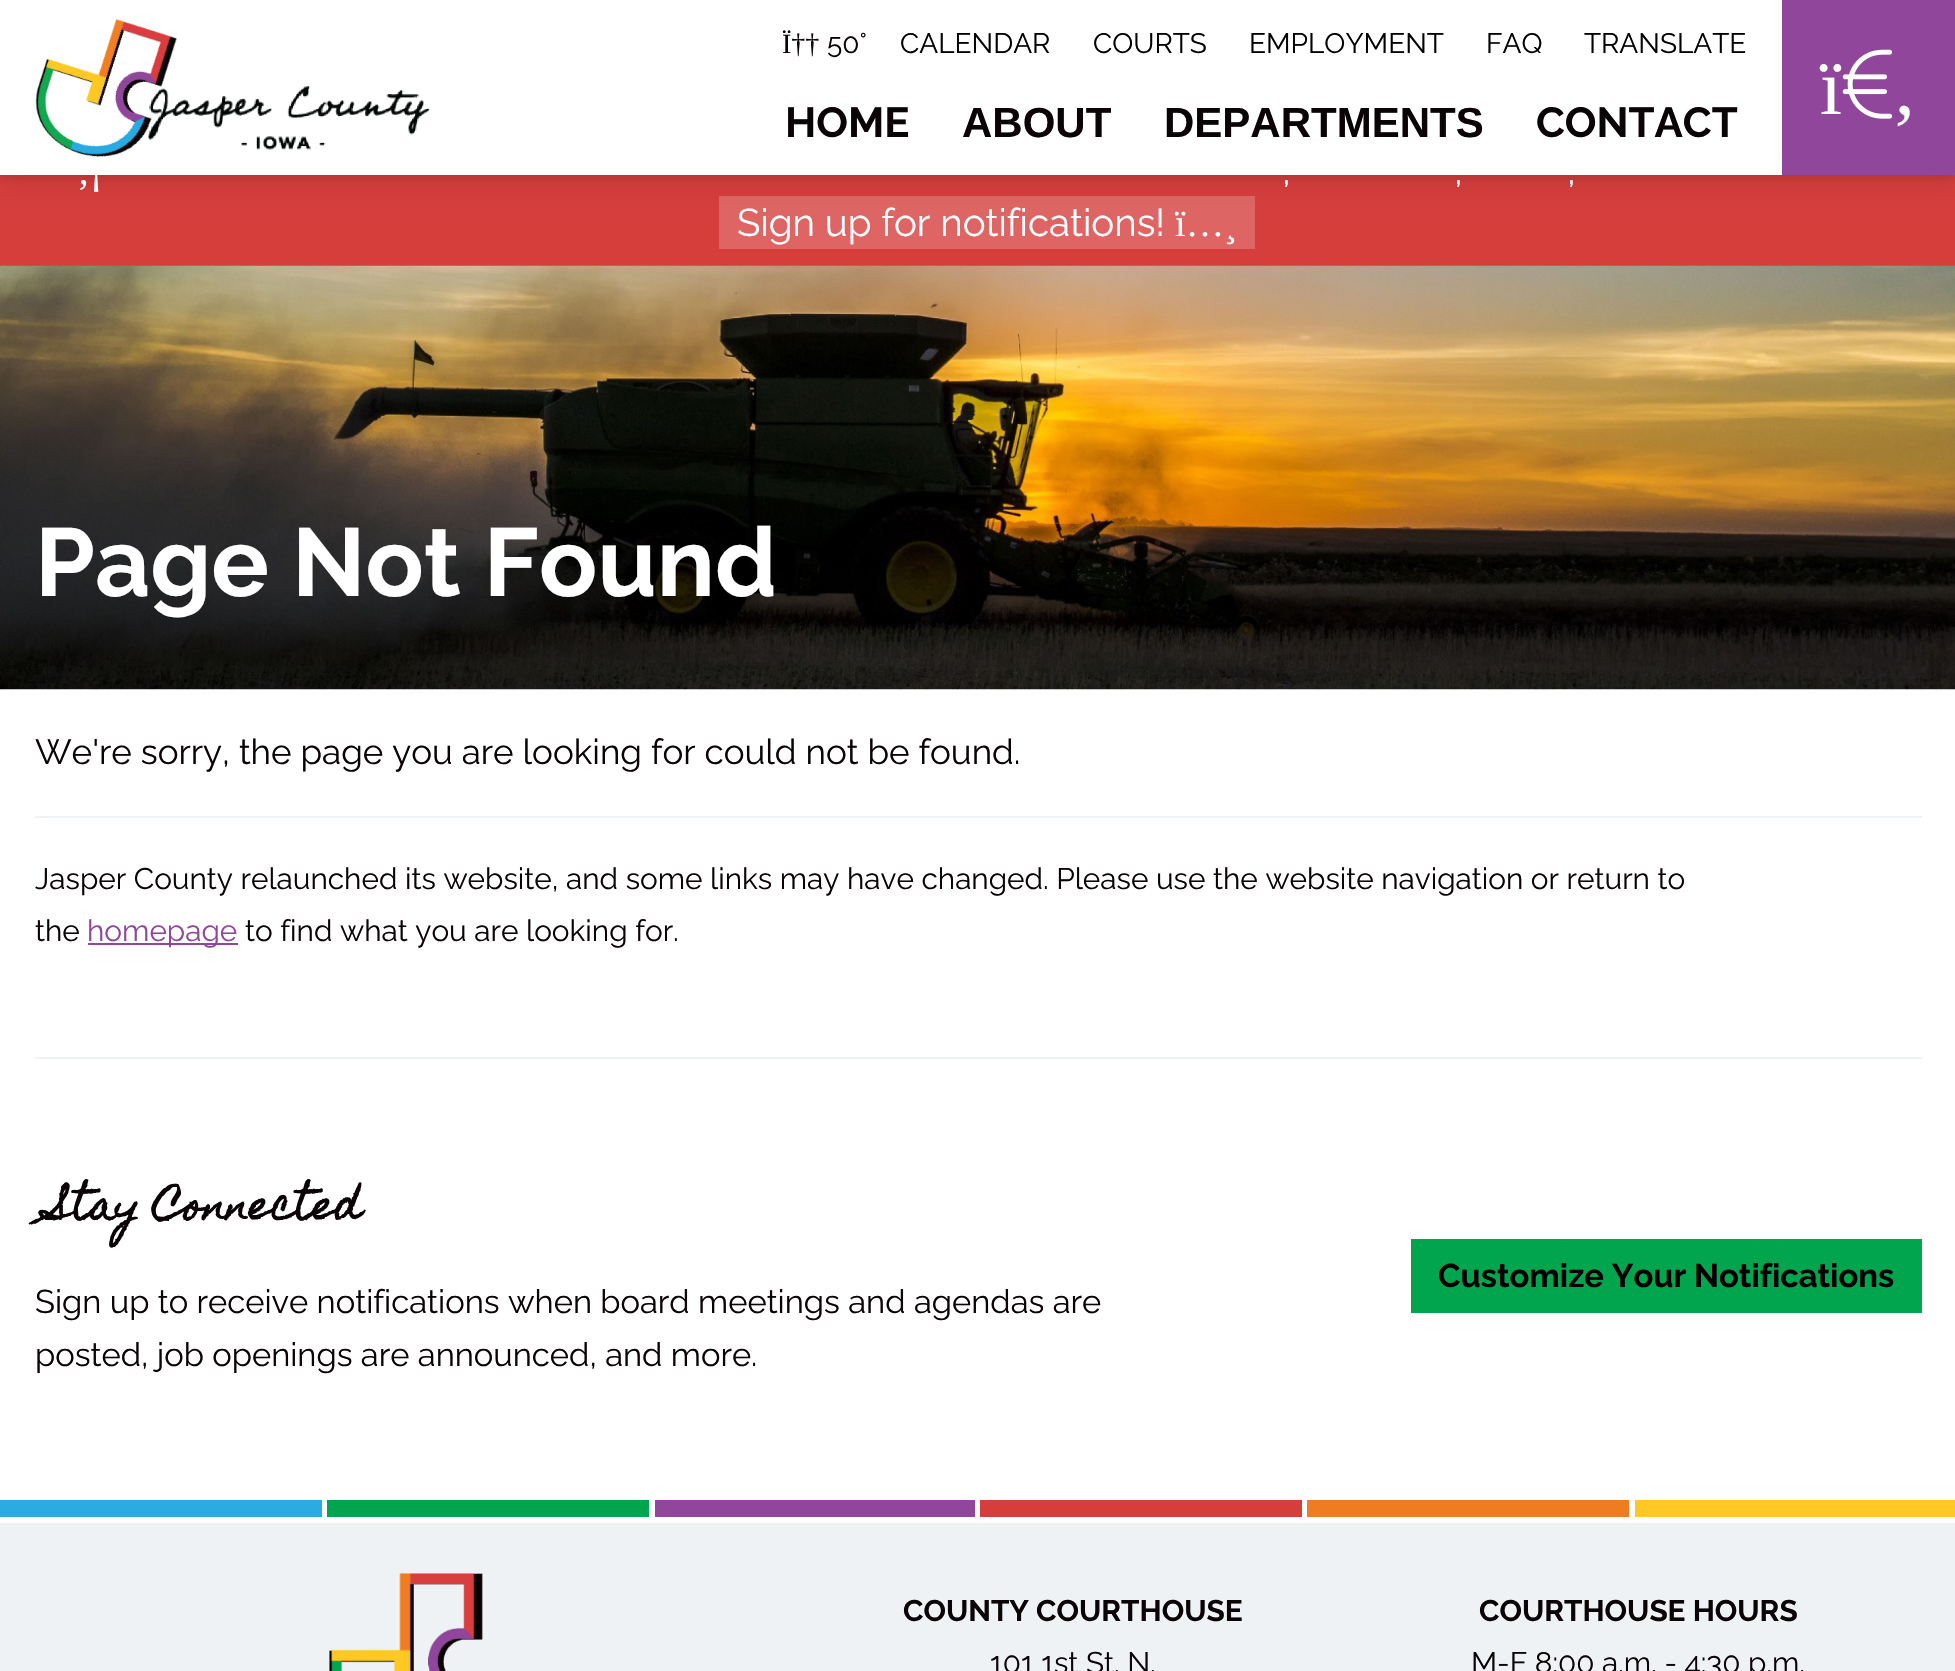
void draw(SkCanvas* canvas) {
	SkPaint fill;
	fill.setAntiAlias(true);
	auto makeFont = [&](const char* family, int weight, float size, bool italic = false) {
		SkFontStyle style(weight, SkFontStyle::kNormal_Width,
			italic ? SkFontStyle::kItalic_Slant : SkFontStyle::kUpright_Slant);
		SkFont result(fontMgr->matchFamilyStyle(family, style), size);
		result.setSubpixel(true);
		return result;
	};
	auto text = [&](const char* s, float x, float y, const SkFont& font) {
		canvas->drawString(s, x, y, font, fill);
	};
	auto box = [&](float l, float t, float r, float b) {
		canvas->drawRect(SkRect::MakeLTRB(l, t, r, b), fill);
	};
	auto picture = [&](const char* path, float l, float t, float r, float b) {
		auto image = SkImages::DeferredFromEncodedData(SkData::MakeFromFileName(path));
		canvas->drawImageRect(image, SkRect::MakeLTRB(l, t, r, b), SkSamplingOptions());
	};
	canvas->clear(0xFFFFFFFF);
	fill.setColor(0xFFD63E3C);
	box(0, 175, 1955, 266);
	fill.setColor(0xFFDE6563);
	box(719, 196, 1255, 249);
	fill.setColor(0x1F000000);
	fill.setMaskFilter(SkMaskFilter::MakeBlur(kNormal_SkBlurStyle, 14));
	canvas->drawRect(SkRect::MakeLTRB(0, 4, 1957, 179), fill);
	fill.setMaskFilter(nullptr);
	fill.setColor(0x0F000000);
	fill.setMaskFilter(SkMaskFilter::MakeBlur(kNormal_SkBlurStyle, 2.5f));
	canvas->drawRect(SkRect::MakeLTRB(0, 5, 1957, 180), fill);
	fill.setMaskFilter(nullptr);
	fill.setColor(0xFFFFFFFF);
	box(0, 0, 1782, 175);
	picture("image0.png", 35, 19, 430, 157);
	fill.setColor(0xFF8F469B);
	box(1782, 0, 1955, 175);
	picture("image1.png", 1842, 49, 1893, 119);
	picture("image2.png", 0, 265, 1955, 690);
	fill.setColor(0xFFEEF2F4);
	box(35, 816, 1922, 818);
	fill.setColor(0xFF8F469B);
	box(88, 943, 238, 945);
	fill.setColor(0xFFEEF2F4);
	box(35, 1057, 1922, 1059);
	fill.setColor(0xFF00A54D);
	box(1411, 1239, 1922, 1313);
	fill.setColor(0xFF2CAAE2);
	box(0, 1500, 322, 1517);
	fill.setColor(0xFF00A54D);
	box(327, 1500, 649, 1517);
	fill.setColor(0xFF8F469B);
	box(655, 1500, 975, 1517);
	fill.setColor(0xFFD63E3C);
	box(980, 1500, 1302, 1517);
	fill.setColor(0xFFEE7D22);
	box(1307, 1500, 1629, 1517);
	fill.setColor(0xFFFFC824);
	box(1635, 1500, 1955, 1517);
	fill.setColor(0xFFEEF2F4);
	box(0, 1523, 1955, 1671);
	picture("image3.png", 329, 1573, 483, 1671);
	auto font1 = makeFont("Liberation Serif", 400, 28);
	fill.setColor(0xFF0B0407);
	text("Ï††", 782, 53, font1);
	auto font2 = makeFont("Raleway", 400, 28);
	text("50°", 827, 53, font2);
	fill.setColor(0xFF000000);
	text("CALENDAR", 900, 53, font2);
	text("COURTS", 1093, 53, font2);
	text("EMPLOYMENT", 1249, 53, font2);
	text("FAQ", 1486, 53, font2);
	text("TRANSLATE", 1584, 53, font2);
	auto font3 = makeFont("Raleway", 700, 42);
	fill.setColor(0xFF0B0407);
	text("HOME", 785, 137, font3);
	auto font4 = makeFont("Liberation Sans", 700, 42);
	text("ABOUT", 962, 137, font4);
	text("DEPARTMENTS", 1164, 137, font4);
	text("CONTACT", 1536, 137, font3);
	auto font5 = makeFont("Liberation Serif", 400, 79);
	fill.setColor(0xFFFFFFFF);
	text("ï", 1820, 114, font5);
	text("‚", 1891, 114, font5);
	auto font6 = makeFont("Liberation Serif", 400, 38.5f);
	text("‚¡", 77, 184, font6);
	auto font7 = makeFont("Raleway", 400, 38.5f);
	text(",", 1282, 184, font7);
	text(",", 1454, 184, font7);
	text(",", 1567, 184, font7);
	text("Sign up for notifications!", 737, 236, font7);
	text("ï…¸", 1175, 236, font6);
	auto font8 = makeFont("Raleway", 700, 96.25f);
	text("Page Not Found", 35, 596, font8);
	auto font9 = makeFont("Raleway", 400, 35);
	fill.setColor(0xFF0B0407);
	text("We're sorry, the page you are looking for could not be found.", 35, 764, font9);
	auto font10 = makeFont("Raleway", 400, 29.75f);
	text("Jasper County relaunched its website, and some links may have changed. Please use the website navigation or return to", 35, 889, font10);
	text("the", 35, 941, font10);
	fill.setColor(0xFF8F469B);
	text("homepage", 87, 941, font10);
	fill.setColor(0xFF0B0407);
	text("to find what you are looking for.", 245, 941, font10);
	auto font11 = makeFont("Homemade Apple", 700, 38.25f);
	text("Stay Connected", 49, 1219, font11);
	auto font12 = makeFont("Raleway", 400, 32.75f);
	text("Sign up to receive notifications when board meetings and agendas are", 35, 1313, font12);
	text("posted, job openings are announced, and more.", 35, 1366, font12);
	auto font13 = makeFont("Raleway", 700, 32.75f);
	fill.setColor(0xFF000000);
	text("Customize Your Notifications", 1438, 1287, font13);
	auto font14 = makeFont("Raleway", 700, 29.75f);
	fill.setColor(0xFF0B0407);
	text("COUNTY COURTHOUSE", 903, 1621, font14);
	text("101 1st St. N.", 990, 1673, font10);
	text("COURTHOUSE HOURS", 1479, 1621, font14);
	text("M-F 8:00 a.m. - 4:30 p.m.", 1471, 1673, font10);
}
